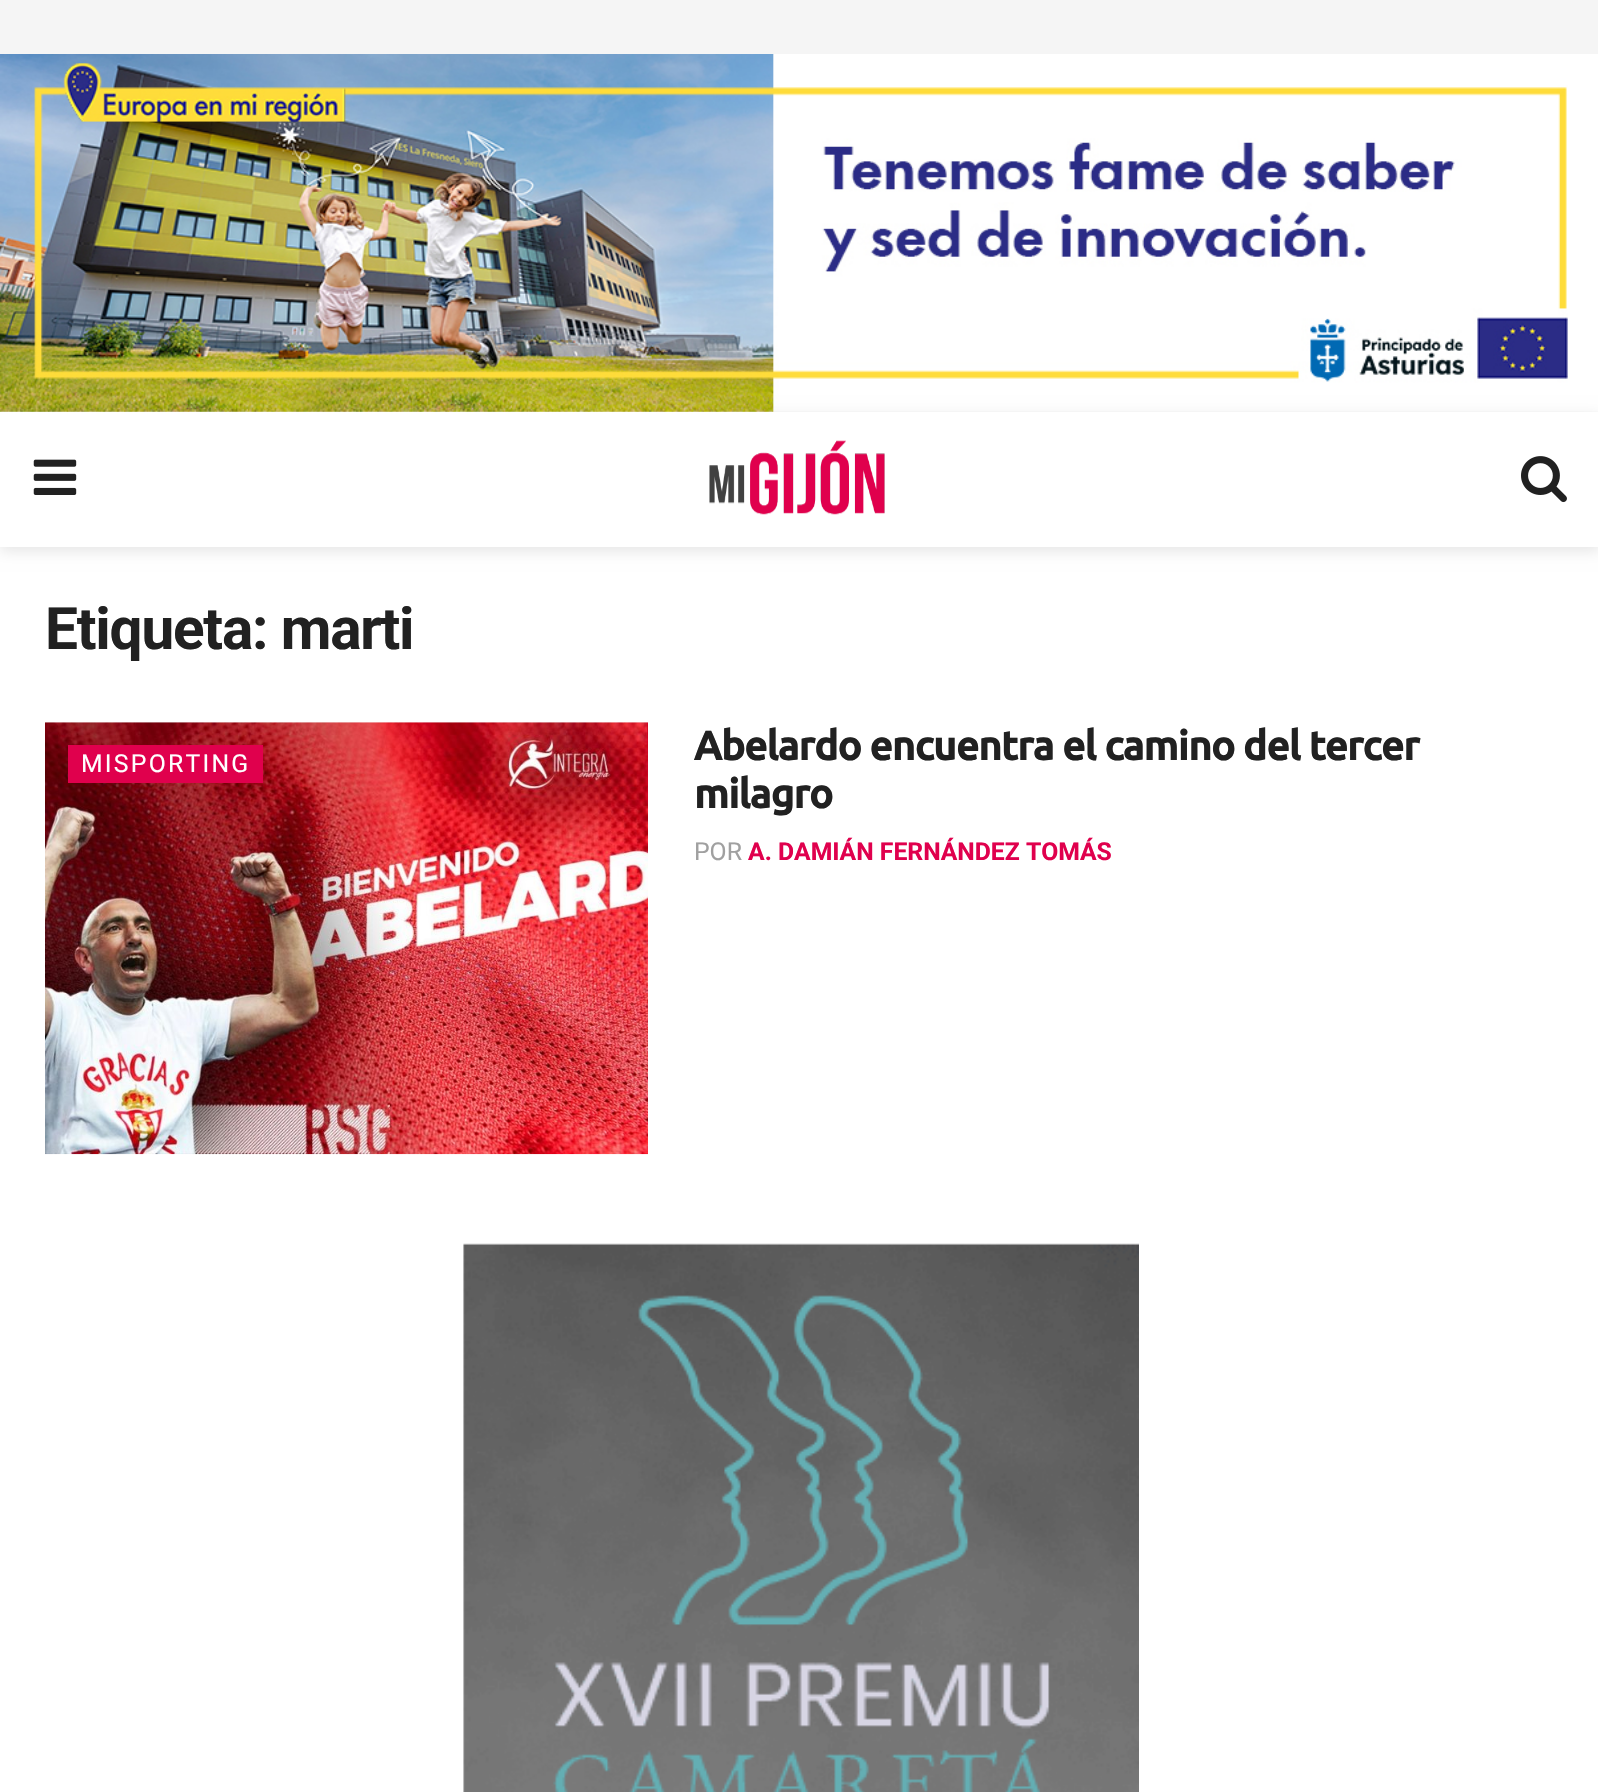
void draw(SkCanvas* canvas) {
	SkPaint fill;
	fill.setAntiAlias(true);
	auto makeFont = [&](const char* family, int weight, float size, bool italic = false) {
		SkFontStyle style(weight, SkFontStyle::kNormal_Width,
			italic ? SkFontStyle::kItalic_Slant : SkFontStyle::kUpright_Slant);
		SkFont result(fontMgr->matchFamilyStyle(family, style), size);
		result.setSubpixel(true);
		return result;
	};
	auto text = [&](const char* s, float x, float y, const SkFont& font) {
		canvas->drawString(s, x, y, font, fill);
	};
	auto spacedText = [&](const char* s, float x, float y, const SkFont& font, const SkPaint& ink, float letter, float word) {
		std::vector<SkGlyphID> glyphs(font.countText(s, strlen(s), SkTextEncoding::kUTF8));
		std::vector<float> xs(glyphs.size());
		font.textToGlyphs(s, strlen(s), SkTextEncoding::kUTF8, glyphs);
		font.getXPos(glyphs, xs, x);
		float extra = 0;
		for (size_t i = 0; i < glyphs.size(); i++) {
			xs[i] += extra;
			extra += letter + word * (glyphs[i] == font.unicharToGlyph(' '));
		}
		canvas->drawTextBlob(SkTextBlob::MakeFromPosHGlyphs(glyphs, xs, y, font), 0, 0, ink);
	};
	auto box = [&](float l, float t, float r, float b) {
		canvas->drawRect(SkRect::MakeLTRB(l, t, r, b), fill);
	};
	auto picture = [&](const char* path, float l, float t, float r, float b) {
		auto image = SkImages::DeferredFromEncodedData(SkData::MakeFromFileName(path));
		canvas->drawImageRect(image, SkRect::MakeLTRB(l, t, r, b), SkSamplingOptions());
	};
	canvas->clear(0xFFFFFFFF);
	fill.setColor(0xFFF5F5F5);
	box(0, 0, 1598, 412);
	picture("image0.png", 0, 54, 1598, 412);
	fill.setColor(0x1A000000);
	fill.setMaskFilter(SkMaskFilter::MakeBlur(kNormal_SkBlurStyle, 7));
	canvas->drawRect(SkRect::MakeLTRB(0, 416, 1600, 551), fill);
	fill.setMaskFilter(nullptr);
	fill.setColor(0xFFFFFFFF);
	box(0, 412, 1598, 547);
	picture("image1.png", 33, 459, 77, 495);
	picture("image2.png", 709, 440, 885, 515);
	picture("image3.png", 1521, 456, 1567, 503);
	fill.setColor(0xFFF7F7F7);
	box(45, 722, 648, 723);
	picture("image5.png", 113, 722, 231, 723);
	picture("image4.png", 45, 722, 648, 1155);
	fill.setColor(0xFFE0004D);
	box(68, 745, 263, 783);
	picture("image6.png", 463, 1243, 1139, 1792);
	auto font1 = makeFont("Roboto", 700, 58.5f);
	fill.setColor(0xFF212121);
	spacedText("Etiqueta: marti", 45, 649, font1, fill, -1.2f, 0);
	auto font2 = makeFont("Roboto", 400, 24.75f);
	fill.setColor(0xFFFFFFFF);
	spacedText("MISPORTING", 81, 772, font2, fill, 2.25f, 0);
	auto font3 = makeFont("Ubuntu", 700, 40.5f);
	fill.setColor(0xFF212121);
	spacedText("Abelardo encuentra el camino del tercer", 694, 760, font3, fill, -0.8f, 0);
	spacedText("milagro", 694, 808, font3, fill, -0.8f, 0);
	fill.setColor(0xFFA0A0A0);
	text("POR", 694, 860, font2);
	auto font4 = makeFont("Roboto", 700, 24.75f);
	fill.setColor(0xFFE0004D);
	text("A. DAMIÁN FERNÁNDEZ TOMÁS", 748, 860, font4);
}
